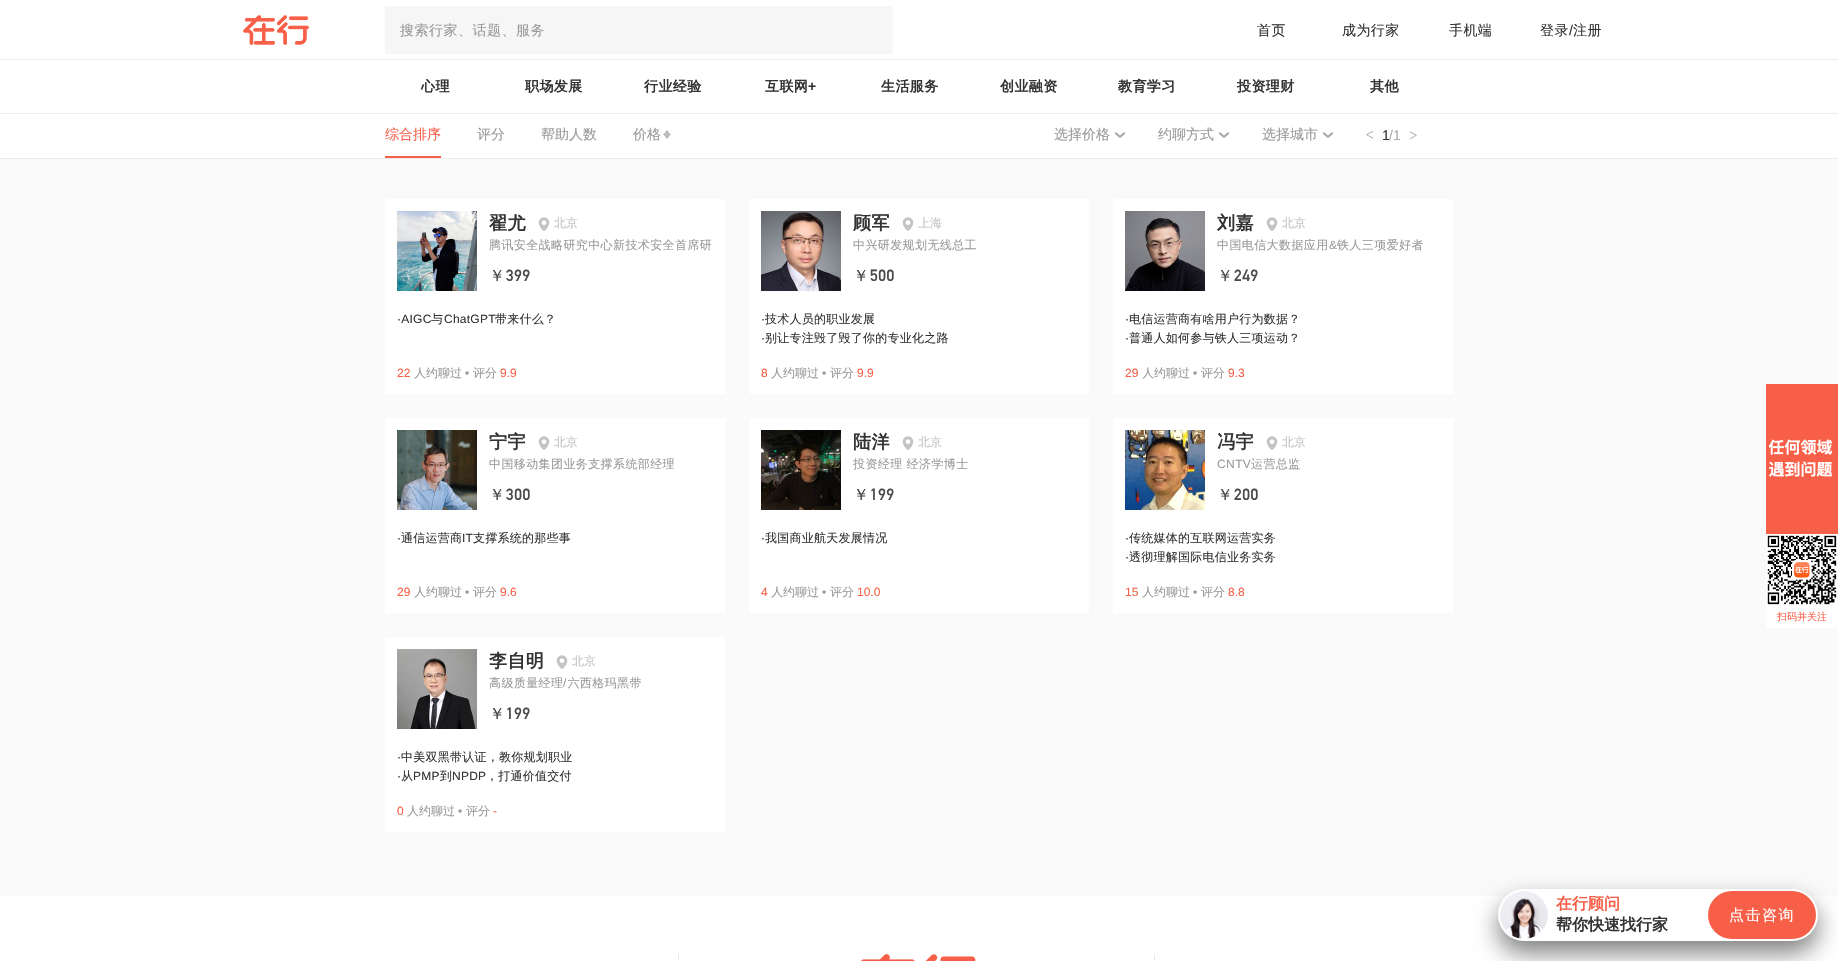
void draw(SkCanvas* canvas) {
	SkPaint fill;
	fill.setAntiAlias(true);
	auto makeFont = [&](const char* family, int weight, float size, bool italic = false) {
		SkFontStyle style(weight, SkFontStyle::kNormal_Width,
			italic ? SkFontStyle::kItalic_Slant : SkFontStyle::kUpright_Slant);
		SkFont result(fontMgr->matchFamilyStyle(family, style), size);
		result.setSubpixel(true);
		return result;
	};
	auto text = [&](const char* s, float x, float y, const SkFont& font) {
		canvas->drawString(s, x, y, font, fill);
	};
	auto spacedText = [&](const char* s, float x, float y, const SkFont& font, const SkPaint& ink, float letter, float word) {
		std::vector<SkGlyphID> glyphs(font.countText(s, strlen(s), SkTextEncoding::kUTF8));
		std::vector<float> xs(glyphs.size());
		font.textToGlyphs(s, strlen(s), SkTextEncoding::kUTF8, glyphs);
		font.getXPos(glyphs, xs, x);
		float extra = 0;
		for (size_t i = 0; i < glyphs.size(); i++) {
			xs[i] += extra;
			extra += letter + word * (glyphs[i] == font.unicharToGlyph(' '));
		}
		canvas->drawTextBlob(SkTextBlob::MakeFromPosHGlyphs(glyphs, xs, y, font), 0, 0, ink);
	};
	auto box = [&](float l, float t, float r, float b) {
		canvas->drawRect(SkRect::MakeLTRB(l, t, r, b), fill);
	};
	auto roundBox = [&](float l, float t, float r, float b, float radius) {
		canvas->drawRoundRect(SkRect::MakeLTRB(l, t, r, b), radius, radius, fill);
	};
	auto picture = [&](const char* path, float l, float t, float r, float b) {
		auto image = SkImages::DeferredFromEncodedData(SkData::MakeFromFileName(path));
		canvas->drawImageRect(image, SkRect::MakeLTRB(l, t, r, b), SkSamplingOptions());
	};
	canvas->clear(0xFFFAFAFA);
	fill.setColor(0xFFFFFFFF);
	box(0, 0, 1838, 59);
	fill.setColor(0xFFECECEC);
	box(0, 59, 1838, 60);
	picture("image0.png", 243, 15, 309, 45);
	fill.setColor(0xFFF6F6F6);
	box(385, 6, 893, 54);
	fill.setColor(0xFFFFFFFF);
	box(0, 60, 1838, 113);
	fill.setColor(0xFFECECEC);
	box(0, 113, 1838, 114);
	fill.setColor(0xFFFFFFFF);
	box(0, 114, 1838, 158);
	fill.setColor(0xFFECECEC);
	box(0, 158, 1838, 159);
	fill.setColor(0xFFF85F48);
	box(385, 156, 441, 158);
	fill.setColor(0xFFBBBBBB);
	canvas->drawPath(SkPathBuilder().moveTo(671, 135).lineTo(663, 135).lineTo(667, 130).close().detach(), fill);
	canvas->drawPath(SkPathBuilder().moveTo(663, 134).lineTo(671, 134).lineTo(667, 139).close().detach(), fill);
	picture("image1.png", 1114, 132, 1126, 138);
	picture("image1.png", 1218, 132, 1230, 138);
	picture("image1.png", 1322, 132, 1334, 138);
	picture("image2.png", 1366, 131, 1374, 139);
	picture("image3.png", 1409, 131, 1417, 139);
	fill.setColor(0xFFFFFFFF);
	box(385, 199, 725, 394);
	picture("image4.png", 397, 211, 477, 291);
	picture("image5.png", 538, 217, 550, 231);
	box(749, 199, 1089, 394);
	picture("image6.png", 761, 211, 841, 291);
	picture("image5.png", 902, 217, 914, 231);
	box(1113, 199, 1453, 394);
	picture("image7.png", 1125, 211, 1205, 291);
	picture("image5.png", 1266, 217, 1278, 231);
	box(385, 418, 725, 613);
	picture("image8.png", 397, 430, 477, 510);
	picture("image5.png", 538, 436, 550, 450);
	box(749, 418, 1089, 613);
	picture("image9.png", 761, 430, 841, 510);
	picture("image5.png", 902, 436, 914, 450);
	box(1113, 418, 1453, 613);
	picture("image10.png", 1125, 430, 1205, 510);
	picture("image5.png", 1266, 436, 1278, 450);
	box(385, 637, 725, 832);
	picture("image11.png", 397, 649, 477, 729);
	picture("image5.png", 556, 655, 568, 669);
	box(1766, 534, 1838, 628);
	picture("image12.png", 1766, 384, 1838, 534);
	picture("image13.png", 1767, 535, 1837, 605);
	box(0, 896, 1838, 961);
	fill.setColor(0x80000000);
	fill.setMaskFilter(SkMaskFilter::MakeBlur(kNormal_SkBlurStyle, 12));
	canvas->drawRoundRect(SkRect::MakeLTRB(1498, 901, 1818, 953), 26, 26, fill);
	fill.setMaskFilter(nullptr);
	fill.setColor(0xFFFFFFFF);
	roundBox(1498, 889, 1818, 941, 26);
	picture("image14.png", 1500, 891, 1548, 939);
	fill.setColor(0xFFF85F48);
	roundBox(1708, 891, 1816, 939, 24);
	fill.setColor(0xFFE9E9E9);
	box(678, 954, 679, 961);
	box(1154, 954, 1155, 961);
	picture("image15.png", 861, 954, 976, 961);
	auto font1 = makeFont("WenQuanYi Zen Hei", 500, 14);
	fill.setColor(0xFF999999);
	spacedText("搜索行家、话题、服务", 400, 35, font1, fill, 0.5f, 0);
	fill.setColor(0xFF333333);
	spacedText("首页", 1257, 35, font1, fill, 0.4f, 0);
	spacedText("成为行家", 1342, 35, font1, fill, 0.4f, 0);
	spacedText("手机端", 1449, 35, font1, fill, 0.4f, 0);
	spacedText("登录", 1540, 35, font1, fill, 0.4f, 0);
	auto font2 = makeFont("Liberation Sans", 400, 14);
	spacedText("/", 1569, 35, font2, fill, 0.4f, 0);
	spacedText("注册", 1573, 35, font1, fill, 0.4f, 0);
	auto font3 = makeFont("WenQuanYi Zen Hei", 700, 14);
	spacedText("心理", 421, 91, font3, fill, 0.4f, 0);
	spacedText("职场发展", 525, 91, font3, fill, 0.4f, 0);
	spacedText("行业经验", 644, 91, font3, fill, 0.4f, 0);
	spacedText("互联网", 765, 91, font3, fill, 0.4f, 0);
	auto font4 = makeFont("Liberation Sans", 700, 14);
	spacedText("+", 808, 91, font4, fill, 0.4f, 0);
	spacedText("生活服务", 881, 91, font3, fill, 0.4f, 0);
	spacedText("创业融资", 1000, 91, font3, fill, 0.4f, 0);
	spacedText("教育学习", 1118, 91, font3, fill, 0.4f, 0);
	spacedText("投资理财", 1237, 91, font3, fill, 0.4f, 0);
	spacedText("其他", 1370, 91, font3, fill, 0.4f, 0);
	fill.setColor(0xFFF85F48);
	text("综合排序", 385, 139, font1);
	fill.setColor(0xFF999999);
	text("评分", 477, 139, font1);
	text("帮助人数", 541, 139, font1);
	text("价格", 633, 139, font1);
	text("选择价格", 1054, 139, font1);
	text("约聊方式", 1158, 139, font1);
	text("选择城市", 1262, 139, font1);
	fill.setColor(0xFF333333);
	text("1", 1382, 140, font2);
	fill.setColor(0xFFACACAC);
	text("/1", 1389, 140, font2);
	auto font5 = makeFont("WenQuanYi Zen Hei", 700, 18);
	fill.setColor(0xFF333333);
	spacedText("翟尤", 489, 229, font5, fill, 0.4f, 0);
	auto font6 = makeFont("WenQuanYi Zen Hei", 500, 12);
	fill.setColor(0xFFC4C4C4);
	text("北京", 554, 227, font6);
	fill.setColor(0xFF999999);
	spacedText("腾讯安全战略研究中心新技术安全首席研", 489, 249, font6, fill, 0.4f, 0);
	auto font7 = makeFont("WenQuanYi Zen Hei", 500, 16);
	fill.setColor(0xFF4A4A4A);
	spacedText("￥", 489, 281, font7, fill, 0.5f, 0);
	auto font8 = makeFont("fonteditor", 400, 16);
	spacedText("399", 506, 281, font8, fill, 0.5f, 0);
	auto font9 = makeFont("Liberation Sans", 400, 12);
	fill.setColor(0xFF333333);
	spacedText("·AIGC", 397, 323, font9, fill, 0.25f, 0);
	spacedText("与", 431, 323, font6, fill, 0.25f, 0);
	spacedText("ChatGPT", 444, 323, font9, fill, 0.25f, 0);
	spacedText("带来什么？", 495, 323, font6, fill, 0.25f, 0);
	fill.setColor(0xFFF85F48);
	text("22", 397, 377, font9);
	fill.setColor(0xFF999999);
	text("人约聊过", 414, 377, font6);
	text("•", 465, 377, font9);
	text("评分", 473, 377, font6);
	fill.setColor(0xFFF85F48);
	text("9.9", 500, 377, font9);
	fill.setColor(0xFF333333);
	spacedText("顾军", 853, 229, font5, fill, 0.4f, 0);
	fill.setColor(0xFFC4C4C4);
	text("上海", 918, 227, font6);
	fill.setColor(0xFF999999);
	spacedText("中兴研发规划无线总工", 853, 249, font6, fill, 0.4f, 0);
	fill.setColor(0xFF4A4A4A);
	spacedText("￥", 853, 281, font7, fill, 0.5f, 0);
	spacedText("500", 870, 281, font8, fill, 0.5f, 0);
	fill.setColor(0xFF333333);
	spacedText("·", 761, 323, font9, fill, 0.25f, 0);
	spacedText("技术人员的职业发展", 765, 323, font6, fill, 0.25f, 0);
	spacedText("·", 761, 342, font9, fill, 0.25f, 0);
	spacedText("别让专注毁了毁了你的专业化之路", 765, 342, font6, fill, 0.25f, 0);
	fill.setColor(0xFFF85F48);
	text("8", 761, 377, font9);
	fill.setColor(0xFF999999);
	text("人约聊过", 771, 377, font6);
	text("•", 822, 377, font9);
	text("评分", 830, 377, font6);
	fill.setColor(0xFFF85F48);
	text("9.9", 857, 377, font9);
	fill.setColor(0xFF333333);
	spacedText("刘嘉", 1217, 229, font5, fill, 0.4f, 0);
	fill.setColor(0xFFC4C4C4);
	text("北京", 1282, 227, font6);
	fill.setColor(0xFF999999);
	spacedText("中国电信大数据应用", 1217, 249, font6, fill, 0.4f, 0);
	spacedText("&", 1329, 249, font9, fill, 0.4f, 0);
	spacedText("铁人三项爱好者", 1337, 249, font6, fill, 0.4f, 0);
	fill.setColor(0xFF4A4A4A);
	spacedText("￥", 1217, 281, font7, fill, 0.5f, 0);
	spacedText("249", 1234, 281, font8, fill, 0.5f, 0);
	fill.setColor(0xFF333333);
	spacedText("·", 1125, 323, font9, fill, 0.25f, 0);
	spacedText("电信运营商有啥用户行为数据？", 1129, 323, font6, fill, 0.25f, 0);
	spacedText("·", 1125, 342, font9, fill, 0.25f, 0);
	spacedText("普通人如何参与铁人三项运动？", 1129, 342, font6, fill, 0.25f, 0);
	fill.setColor(0xFFF85F48);
	text("29", 1125, 377, font9);
	fill.setColor(0xFF999999);
	text("人约聊过", 1142, 377, font6);
	text("•", 1193, 377, font9);
	text("评分", 1201, 377, font6);
	fill.setColor(0xFFF85F48);
	text("9.3", 1228, 377, font9);
	fill.setColor(0xFF333333);
	spacedText("宁宇", 489, 448, font5, fill, 0.4f, 0);
	fill.setColor(0xFFC4C4C4);
	text("北京", 554, 446, font6);
	fill.setColor(0xFF999999);
	spacedText("中国移动集团业务支撑系统部经理", 489, 468, font6, fill, 0.4f, 0);
	fill.setColor(0xFF4A4A4A);
	spacedText("￥", 489, 500, font7, fill, 0.5f, 0);
	spacedText("300", 506, 500, font8, fill, 0.5f, 0);
	fill.setColor(0xFF333333);
	spacedText("·", 397, 542, font9, fill, 0.25f, 0);
	spacedText("通信运营商", 401, 542, font6, fill, 0.25f, 0);
	spacedText("IT", 462, 542, font9, fill, 0.25f, 0);
	spacedText("支撑系统的那些事", 473, 542, font6, fill, 0.25f, 0);
	fill.setColor(0xFFF85F48);
	text("29", 397, 596, font9);
	fill.setColor(0xFF999999);
	text("人约聊过", 414, 596, font6);
	text("•", 465, 596, font9);
	text("评分", 473, 596, font6);
	fill.setColor(0xFFF85F48);
	text("9.6", 500, 596, font9);
	fill.setColor(0xFF333333);
	spacedText("陆洋", 853, 448, font5, fill, 0.4f, 0);
	fill.setColor(0xFFC4C4C4);
	text("北京", 918, 446, font6);
	fill.setColor(0xFF999999);
	spacedText("投资经理 经济学博士", 853, 468, font6, fill, 0.4f, 0);
	fill.setColor(0xFF4A4A4A);
	spacedText("￥", 853, 500, font7, fill, 0.5f, 0);
	spacedText("199", 870, 500, font8, fill, 0.5f, 0);
	fill.setColor(0xFF333333);
	spacedText("·", 761, 542, font9, fill, 0.25f, 0);
	spacedText("我国商业航天发展情况", 765, 542, font6, fill, 0.25f, 0);
	fill.setColor(0xFFF85F48);
	text("4", 761, 596, font9);
	fill.setColor(0xFF999999);
	text("人约聊过", 771, 596, font6);
	text("•", 822, 596, font9);
	text("评分", 830, 596, font6);
	fill.setColor(0xFFF85F48);
	text("10.0", 857, 596, font9);
	fill.setColor(0xFF333333);
	spacedText("冯宇", 1217, 448, font5, fill, 0.4f, 0);
	fill.setColor(0xFFC4C4C4);
	text("北京", 1282, 446, font6);
	fill.setColor(0xFF999999);
	spacedText("CNTV", 1217, 468, font9, fill, 0.4f, 0);
	spacedText("运营总监", 1251, 468, font6, fill, 0.4f, 0);
	fill.setColor(0xFF4A4A4A);
	spacedText("￥", 1217, 500, font7, fill, 0.5f, 0);
	spacedText("200", 1234, 500, font8, fill, 0.5f, 0);
	fill.setColor(0xFF333333);
	spacedText("·", 1125, 542, font9, fill, 0.25f, 0);
	spacedText("传统媒体的互联网运营实务", 1129, 542, font6, fill, 0.25f, 0);
	spacedText("·", 1125, 561, font9, fill, 0.25f, 0);
	spacedText("透彻理解国际电信业务实务", 1129, 561, font6, fill, 0.25f, 0);
	fill.setColor(0xFFF85F48);
	text("15", 1125, 596, font9);
	fill.setColor(0xFF999999);
	text("人约聊过", 1142, 596, font6);
	text("•", 1193, 596, font9);
	text("评分", 1201, 596, font6);
	fill.setColor(0xFFF85F48);
	text("8.8", 1228, 596, font9);
	fill.setColor(0xFF333333);
	spacedText("李自明", 489, 667, font5, fill, 0.4f, 0);
	fill.setColor(0xFFC4C4C4);
	text("北京", 572, 665, font6);
	fill.setColor(0xFF999999);
	spacedText("高级质量经理 六西格玛黑带", 489, 687, font6, fill, 0.4f, 0);
	spacedText("/", 563, 687, font9, fill, 0.4f, 0);
	fill.setColor(0xFF4A4A4A);
	spacedText("￥", 489, 719, font7, fill, 0.5f, 0);
	spacedText("199", 506, 719, font8, fill, 0.5f, 0);
	fill.setColor(0xFF333333);
	spacedText("·", 397, 761, font9, fill, 0.25f, 0);
	spacedText("中美双黑带认证，教你规划职业", 401, 761, font6, fill, 0.25f, 0);
	spacedText("·", 397, 780, font9, fill, 0.25f, 0);
	spacedText("从", 401, 780, font6, fill, 0.25f, 0);
	spacedText("PMP", 413, 780, font9, fill, 0.25f, 0);
	spacedText("到", 440, 780, font6, fill, 0.25f, 0);
	spacedText("NPDP", 452, 780, font9, fill, 0.25f, 0);
	spacedText("，打通价值交付", 486, 780, font6, fill, 0.25f, 0);
	fill.setColor(0xFFF85F48);
	text("0", 397, 815, font9);
	fill.setColor(0xFF999999);
	text("人约聊过", 407, 815, font6);
	text("•", 458, 815, font9);
	text("评分", 466, 815, font6);
	fill.setColor(0xFFF85F48);
	text("-", 493, 815, font9);
	auto font10 = makeFont("WenQuanYi Zen Hei", 500, 10);
	text("扫码并关注", 1777, 620, font10);
	auto font11 = makeFont("WenQuanYi Zen Hei", 700, 16);
	text("在行顾问", 1556, 909, font11);
	fill.setColor(0xFF333333);
	text("帮你快速找行家", 1556, 930, font11);
	auto font12 = makeFont("WenQuanYi Zen Hei", 500, 15);
	fill.setColor(0xFFFFFFFF);
	spacedText("点击咨询", 1729, 920, font12, fill, 1.5f, 0);
}
